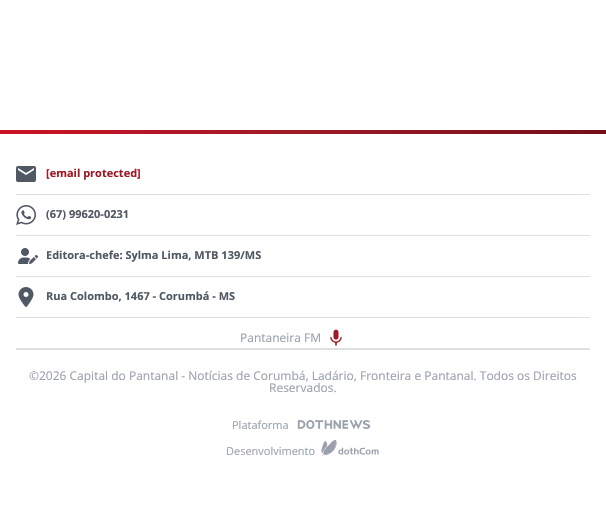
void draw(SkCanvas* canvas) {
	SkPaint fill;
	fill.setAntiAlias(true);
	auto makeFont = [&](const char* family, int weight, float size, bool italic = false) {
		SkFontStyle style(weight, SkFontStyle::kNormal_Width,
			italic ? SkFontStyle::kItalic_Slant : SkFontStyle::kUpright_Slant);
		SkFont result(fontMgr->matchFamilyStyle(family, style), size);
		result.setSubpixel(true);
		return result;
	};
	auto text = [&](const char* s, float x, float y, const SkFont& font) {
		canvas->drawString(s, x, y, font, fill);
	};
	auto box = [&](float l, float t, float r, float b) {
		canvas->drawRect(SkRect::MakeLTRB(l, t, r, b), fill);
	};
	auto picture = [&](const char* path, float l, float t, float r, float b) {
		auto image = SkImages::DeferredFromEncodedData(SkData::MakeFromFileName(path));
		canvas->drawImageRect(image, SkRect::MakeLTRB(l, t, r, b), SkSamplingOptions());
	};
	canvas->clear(0xFFFFFFFF);
	{
		const SkColor colors[] = {0xFFCB1225, 0xFF9E1A27, 0xFF740E18};
		const float stops[] = {0, 0.5f, 1};
		const SkPoint ends[] = {{0, 132}, {606, 132}};
		fill.setShader(SkGradientShader::MakeLinear(ends, colors, stops, 3, SkTileMode::kClamp));
		fill.setAlpha(255);
	}
	box(0, 130, 606, 134);
	fill.setShader(nullptr);
	fill.setColor(0xFFDEE0E6);
	box(16, 194, 590, 195);
	picture("image0.png", 16, 166, 36, 182);
	box(16, 235, 590, 236);
	picture("image1.png", 16, 205, 36, 225);
	box(16, 276, 590, 277);
	picture("image2.png", 18, 248, 38, 264);
	box(16, 317, 590, 318);
	picture("image3.png", 18, 287, 34, 307);
	picture("image4.png", 330, 329, 342, 346);
	box(16, 348, 590, 350);
	picture("image5.png", 297, 420, 371, 429);
	picture("image6.png", 321, 440, 379, 456);
	auto font1 = makeFont("Open Sans", 700, 11);
	fill.setColor(0xFF9E1A27);
	text("[email protected]", 46, 177, font1);
	fill.setColor(0xFF4F5863);
	text("(67) 99620-0231", 46, 218, font1);
	text("Editora-chefe: Sylma Lima, MTB 139/MS", 46, 259, font1);
	text("Rua Colombo, 1467 - Corumbá - MS", 46, 300, font1);
	auto font2 = makeFont("Open Sans", 400, 12);
	fill.setColor(0xFF9AA0AD);
	text("Pantaneira FM", 240, 342, font2);
	text("©2026 Capital do Pantanal - Notícias de Corumbá, Ladário, Fronteira e Pantanal. Todos os Direitos", 29, 380, font2);
	text("Reservados.", 269, 392, font2);
	auto font3 = makeFont("Open Sans", 400, 11);
	text("Plataforma", 232, 429, font3);
	text("Desenvolvimento", 226, 455, font3);
}
